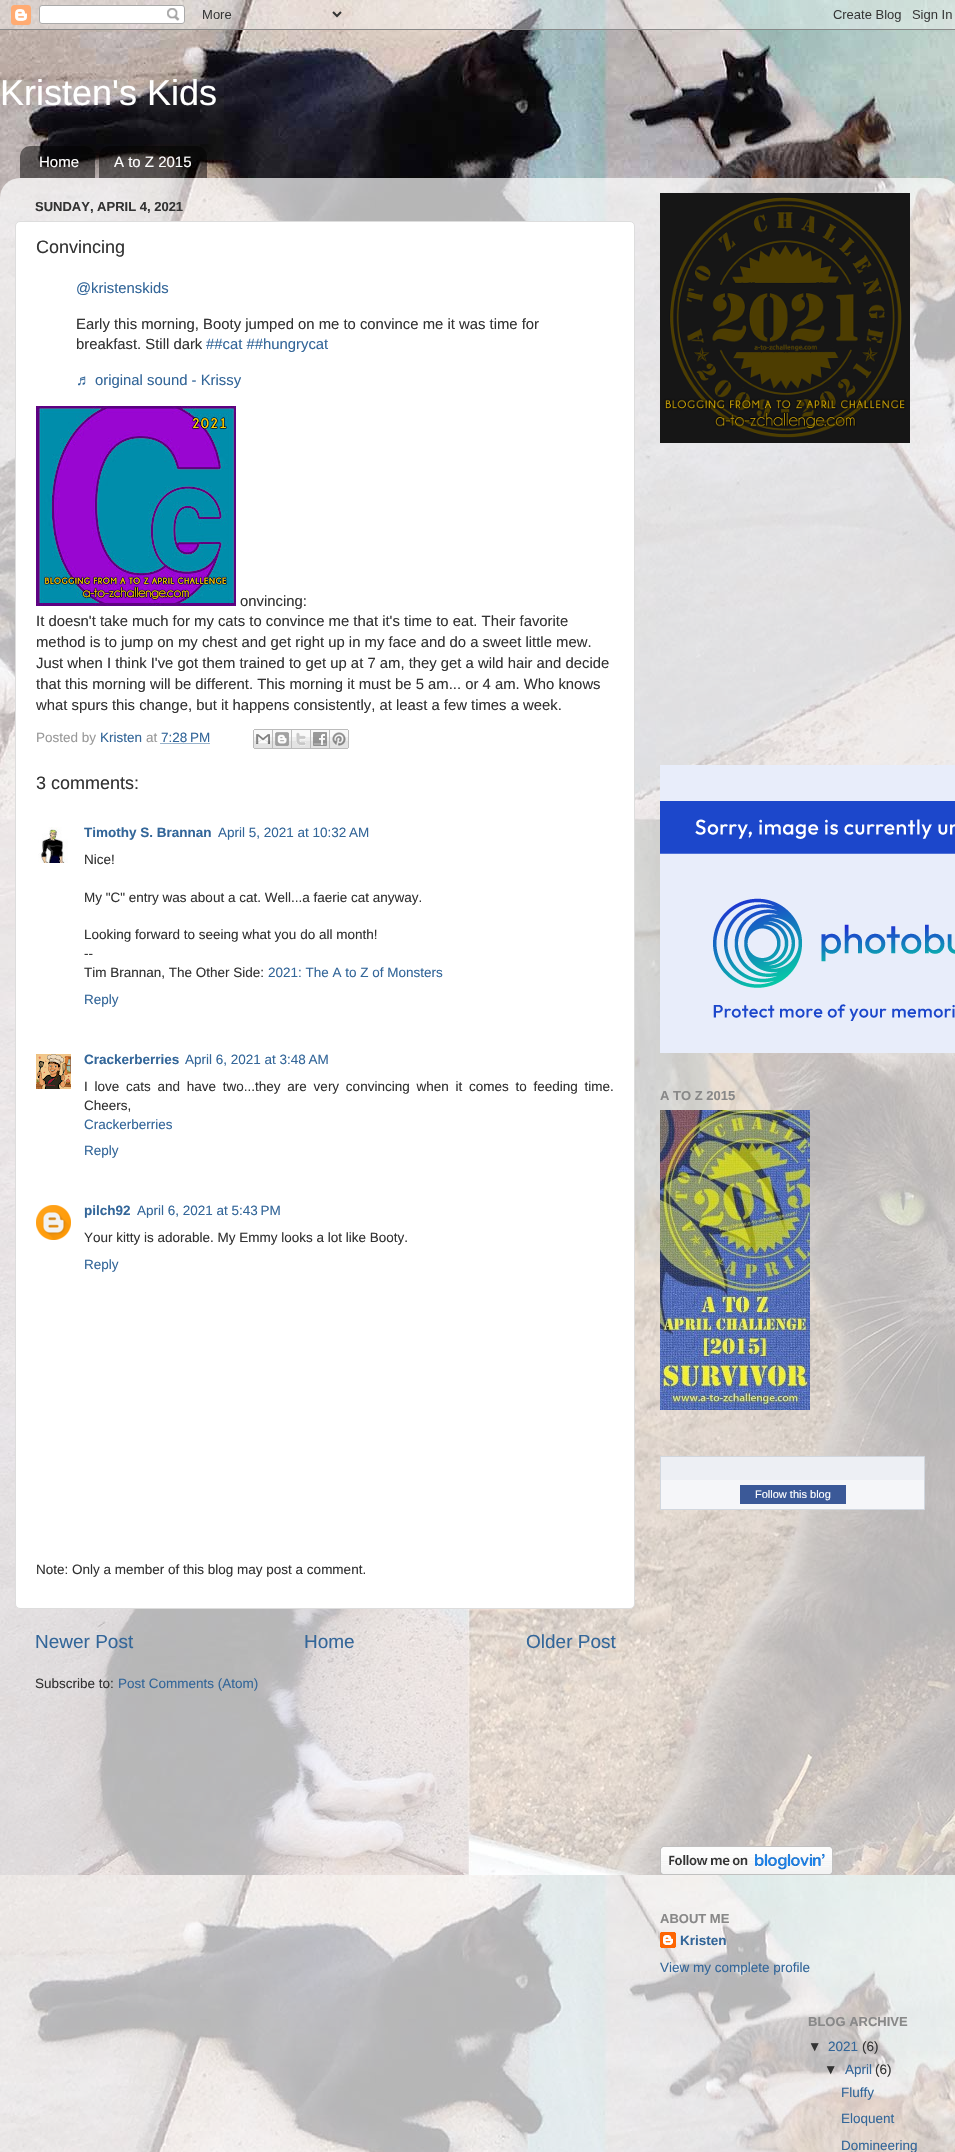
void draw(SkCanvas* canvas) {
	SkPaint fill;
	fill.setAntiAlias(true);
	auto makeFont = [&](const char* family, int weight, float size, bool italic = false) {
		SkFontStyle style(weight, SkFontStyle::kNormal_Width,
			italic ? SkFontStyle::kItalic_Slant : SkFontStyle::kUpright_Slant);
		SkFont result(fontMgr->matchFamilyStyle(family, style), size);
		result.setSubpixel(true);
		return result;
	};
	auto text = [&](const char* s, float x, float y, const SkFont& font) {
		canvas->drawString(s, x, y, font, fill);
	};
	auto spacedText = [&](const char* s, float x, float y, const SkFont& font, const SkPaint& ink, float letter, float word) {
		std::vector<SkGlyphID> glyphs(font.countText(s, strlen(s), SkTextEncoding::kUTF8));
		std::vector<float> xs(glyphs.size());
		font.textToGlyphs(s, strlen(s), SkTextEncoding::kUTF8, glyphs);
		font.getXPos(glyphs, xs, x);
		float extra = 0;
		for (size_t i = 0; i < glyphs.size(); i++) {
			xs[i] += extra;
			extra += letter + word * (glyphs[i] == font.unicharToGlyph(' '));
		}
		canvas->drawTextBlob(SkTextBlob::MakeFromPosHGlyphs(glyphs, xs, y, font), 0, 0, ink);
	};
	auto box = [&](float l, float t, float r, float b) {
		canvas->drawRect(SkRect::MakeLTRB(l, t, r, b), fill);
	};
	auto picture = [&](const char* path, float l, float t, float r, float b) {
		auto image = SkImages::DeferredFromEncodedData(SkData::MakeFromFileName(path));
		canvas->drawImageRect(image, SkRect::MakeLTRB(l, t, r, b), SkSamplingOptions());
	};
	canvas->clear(0xFFFFFFFF);
	picture("image0.png", 0, 0, 955, 2152);
	picture("image1.png", 0, 0, 955, 30);
	picture("image2.png", 20, 146, 95, 178);
	picture("image3.png", 99, 146, 207, 178);
	picture("image4.png", 0, 178, 955, 2152);
	fill.setColor(0xFFFFFFFF);
	canvas->drawRoundRect(SkRect::MakeLTRB(15.5f, 221.5f, 634.5f, 1608.5f), 4.5f, 4.5f, fill);
	fill.setStyle(SkPaint::kStroke_Style);
	fill.setStrokeWidth(1);
	fill.setColor(0xFFDDDDDD);
	canvas->drawRoundRect(SkRect::MakeLTRB(15.5f, 221.5f, 634.5f, 1608.5f), 4.5f, 4.5f, fill);
	picture("image5.png", 36, 406, 236, 606);
	fill.setColor(0xFF336699);
	fill.setPathEffect(SkDashPathEffect::Make({{1, 1}}, 0));
	canvas->drawPath(SkPathBuilder().moveTo(160.5f, 743.5f).lineTo(210, 743.5f).detach(), fill);
	fill.setPathEffect(nullptr);
	picture("image6.png", 253, 729, 273, 749);
	picture("image7.png", 273, 729, 292, 749);
	picture("image8.png", 292, 729, 311, 749);
	picture("image9.png", 311, 729, 330, 749);
	picture("image10.png", 330, 729, 349, 749);
	picture("image11.png", 38, 827, 68, 863);
	picture("image12.png", 36, 1054, 71, 1089);
	picture("image13.png", 36, 1205, 71, 1240);
	picture("image14.png", 660, 193, 910, 443);
	picture("image15.png", 660, 765, 955, 1053);
	picture("image16.png", 660, 1110, 810, 1410);
	fill.setStyle(SkPaint::kFill_Style);
	fill.setColor(0xFFF5F6F9);
	box(661, 1480, 924, 1509);
	fill.setStyle(SkPaint::kStroke_Style);
	fill.setColor(0xFFD1D7DF);
	canvas->drawRect(SkRect::MakeLTRB(660.5f, 1456.5f, 924.5f, 1509.5f), fill);
	fill.setStyle(SkPaint::kFill_Style);
	fill.setColor(0xFFEDEFF4);
	box(661, 1457, 924, 1480);
	fill.setColor(0xFF3B5998);
	box(740, 1485, 846, 1504);
	picture("image17.png", 660, 1846, 833, 1875);
	picture("image18.png", 660, 1932, 676, 1948);
	auto font1 = makeFont("Liberation Sans", 400, 36);
	fill.setColor(0xFFFFFFFF);
	text("Kristen's Kids", 0, 105, font1);
	auto font2 = makeFont("Liberation Sans", 400, 15);
	text("Home", 39, 167, font2);
	text("A to Z 2015", 114, 167, font2);
	auto font3 = makeFont("Liberation Sans", 700, 13);
	fill.setColor(0xFF333333);
	text("SUNDAY, APRIL 4, 2021", 35, 211, font3);
	auto font4 = makeFont("Liberation Sans", 400, 18);
	text("Convincing", 36, 253, font4);
	auto font5 = makeFont("Liberation Sans", 400, 14.85f);
	fill.setColor(0xFF336699);
	text("@kristenskids", 76, 293, font5);
	fill.setColor(0xFF333333);
	text("Early this morning, Booty jumped on me to convince me it was time for", 76, 329, font5);
	text("breakfast. Still dark", 76, 349, font5);
	fill.setColor(0xFF336699);
	text("##cat ##hungrycat", 206, 349, font5);
	text("♬ original sound - Krissy", 76, 385, font5);
	fill.setColor(0xFF333333);
	text("onvincing:", 240, 606, font5);
	text("It doesn't take much for my cats to convince me that it's time to eat. Their favorite", 36, 626, font5);
	text("method is to jump on my chest and get right up in my face and do a sweet little mew.", 36, 647, font5);
	text("Just when I think I've got them trained to get up at 7 am, they get a wild hair and decide", 36, 668, font5);
	text("that this morning will be different. This morning it must be 5 am... or 4 am. Who knows", 36, 689, font5);
	text("what spurs this change, but it happens consistently, at least a few times a week.", 36, 710, font5);
	auto font6 = makeFont("Liberation Sans", 400, 13.5f);
	fill.setColor(0xFF999999);
	text("Posted by", 36, 742, font6);
	fill.setColor(0xFF336699);
	text("Kristen", 100, 742, font6);
	fill.setColor(0xFF999999);
	text("at", 146, 742, font6);
	fill.setColor(0xFF336699);
	text("7:28 PM", 161, 742, font6);
	fill.setColor(0xFF333333);
	text("3 comments:", 36, 789, font4);
	auto font7 = makeFont("Liberation Sans", 700, 13.5f);
	fill.setColor(0xFF336699);
	text("Timothy S. Brannan", 84, 837, font7);
	text("April 5, 2021 at 10:32 AM", 218, 837, font6);
	fill.setColor(0xFF333333);
	text("Nice!", 84, 864, font6);
	text("My \"C\" entry was about a cat. Well...a faerie cat anyway.", 84, 902, font6);
	text("Looking forward to seeing what you do all month!", 84, 939, font6);
	text("--", 84, 958, font6);
	text("Tim Brannan, The Other Side:", 84, 977, font6);
	fill.setColor(0xFF336699);
	text("2021: The A to Z of Monsters", 268, 977, font6);
	text("Reply", 84, 1004, font6);
	text("Crackerberries", 84, 1064, font7);
	text("April 6, 2021 at 3:48 AM", 185, 1064, font6);
	fill.setColor(0xFF333333);
	spacedText("I love cats and have two...they are very convincing when it comes to feeding time.", 84, 1091, font6, fill, 0, 3);
	text("Cheers,", 84, 1110, font6);
	fill.setColor(0xFF336699);
	text("Crackerberries", 84, 1129, font6);
	text("Reply", 84, 1155, font6);
	text("pilch92", 84, 1215, font7);
	text("April 6, 2021 at 5:43 PM", 137, 1215, font6);
	fill.setColor(0xFF333333);
	text("Your kitty is adorable. My Emmy looks a lot like Booty.", 84, 1242, font6);
	fill.setColor(0xFF336699);
	text("Reply", 84, 1269, font6);
	fill.setColor(0xFF333333);
	text("Note: Only a member of this blog may post a comment.", 36, 1574, font6);
	auto font8 = makeFont("Liberation Sans", 400, 19);
	fill.setColor(0xFF336699);
	text("Newer Post", 35, 1648, font8);
	text("Home", 304, 1648, font8);
	text("Older Post", 526, 1648, font8);
	fill.setColor(0xFF333333);
	text("Subscribe to:", 35, 1688, font6);
	fill.setColor(0xFF336699);
	text("Post Comments (Atom)", 118, 1688, font6);
	fill.setColor(0xFF888888);
	text("A TO Z 2015", 660, 1100, font3);
	auto font9 = makeFont("Liberation Sans", 400, 11);
	fill.setColor(0xFFFFFFFF);
	text("Follow this blog", 755, 1498, font9);
	fill.setColor(0xFF888888);
	text("ABOUT ME", 660, 1923, font3);
	fill.setColor(0xFF336699);
	text("Kristen", 680, 1945, font7);
	text("View my complete profile", 660, 1972, font6);
	fill.setColor(0xFF888888);
	text("BLOG ARCHIVE", 808, 2026, font3);
	fill.setColor(0xFF333333);
	text("▼", 808, 2051, font6);
	fill.setColor(0xFF336699);
	text("2021", 828, 2051, font6);
	fill.setColor(0xFF333333);
	text("(6)", 862, 2051, font6);
	text("▼", 824, 2074, font6);
	fill.setColor(0xFF336699);
	text("April", 845, 2074, font6);
	fill.setColor(0xFF333333);
	text("(6)", 875, 2074, font6);
	fill.setColor(0xFF336699);
	text("Fluffy", 841, 2097, font6);
	text("Eloquent", 841, 2123, font6);
	text("Domineering", 841, 2150, font6);
}
